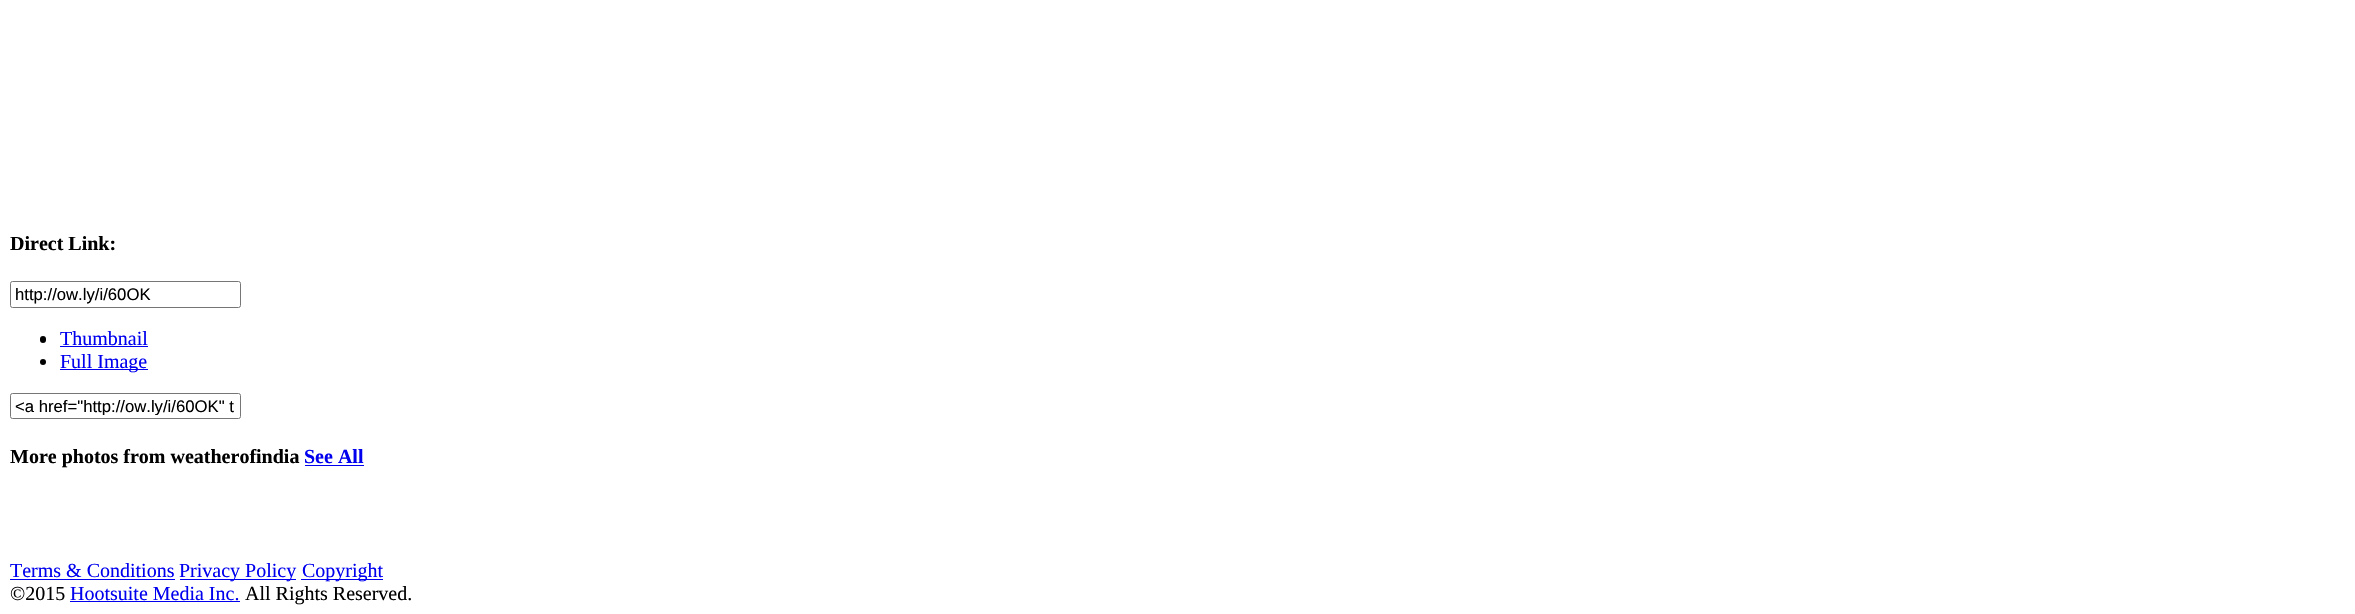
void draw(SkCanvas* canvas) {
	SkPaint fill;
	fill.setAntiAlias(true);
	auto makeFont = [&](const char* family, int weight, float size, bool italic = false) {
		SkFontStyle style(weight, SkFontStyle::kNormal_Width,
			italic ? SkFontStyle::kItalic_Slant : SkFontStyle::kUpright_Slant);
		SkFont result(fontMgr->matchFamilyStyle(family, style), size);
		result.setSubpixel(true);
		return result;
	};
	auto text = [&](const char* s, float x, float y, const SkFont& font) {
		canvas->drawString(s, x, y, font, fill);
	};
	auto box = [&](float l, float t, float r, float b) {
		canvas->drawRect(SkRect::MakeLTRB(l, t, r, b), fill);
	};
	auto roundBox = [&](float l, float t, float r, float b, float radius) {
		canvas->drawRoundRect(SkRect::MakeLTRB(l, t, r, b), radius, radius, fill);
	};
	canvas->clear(0xFFFFFFFF);
	fill.setStyle(SkPaint::kStroke_Style);
	fill.setStrokeWidth(1);
	fill.setColor(0xFF767676);
	canvas->drawRoundRect(SkRect::MakeLTRB(10.5f, 281.5f, 240.5f, 307.5f), 2, 2, fill);
	fill.setStyle(SkPaint::kFill_Style);
	fill.setColor(0xFF000000);
	roundBox(40, 336, 46, 343, 3);
	fill.setColor(0xFF0000EE);
	box(60, 346, 148, 347);
	fill.setColor(0xFF000000);
	canvas->drawCircle(43, 362, 3, fill);
	fill.setColor(0xFF0000EE);
	box(60, 369, 148, 370);
	fill.setStyle(SkPaint::kStroke_Style);
	fill.setColor(0xFF767676);
	canvas->drawRoundRect(SkRect::MakeLTRB(10.5f, 393.5f, 240.5f, 418.5f), 2, 2, fill);
	fill.setStyle(SkPaint::kFill_Style);
	fill.setColor(0xFF0000EE);
	box(305, 465, 364, 466);
	box(10, 579, 175, 580);
	box(180, 579, 296, 580);
	box(301, 579, 383, 580);
	box(70, 601, 240, 602);
	auto font1 = makeFont("Liberation Serif", 700, 20);
	fill.setColor(0xFF000000);
	text("Direct Link:", 10, 250, font1);
	auto font2 = makeFont("Liberation Sans", 400, 16.7f);
	text("http://ow.ly/i/60OK", 15, 300, font2);
	auto font3 = makeFont("Liberation Serif", 400, 20);
	fill.setColor(0xFF0000EE);
	text("Thumbnail", 60, 345, font3);
	text("Full Image", 60, 368, font3);
	canvas->save();
	canvas->clipRect(SkRect::MakeLTRB(15, 396, 236, 415));
	fill.setColor(0xFF000000);
	text("<a href=\"http://ow.ly/i/60OK\" t", 15, 412, font2);
	canvas->restore();
	text("More photos from weatherofindia", 10, 463, font1);
	fill.setColor(0xFF0000EE);
	text("See All", 304, 463, font1);
	text("Terms & Conditions", 10, 577, font3);
	text("Privacy Policy", 179, 577, font3);
	text("Copyright", 302, 577, font3);
	fill.setColor(0xFF000000);
	text("©2015", 10, 600, font3);
	fill.setColor(0xFF0000EE);
	text("Hootsuite Media Inc.", 70, 600, font3);
	fill.setColor(0xFF000000);
	text("All Rights Reserved.", 245, 600, font3);
}
